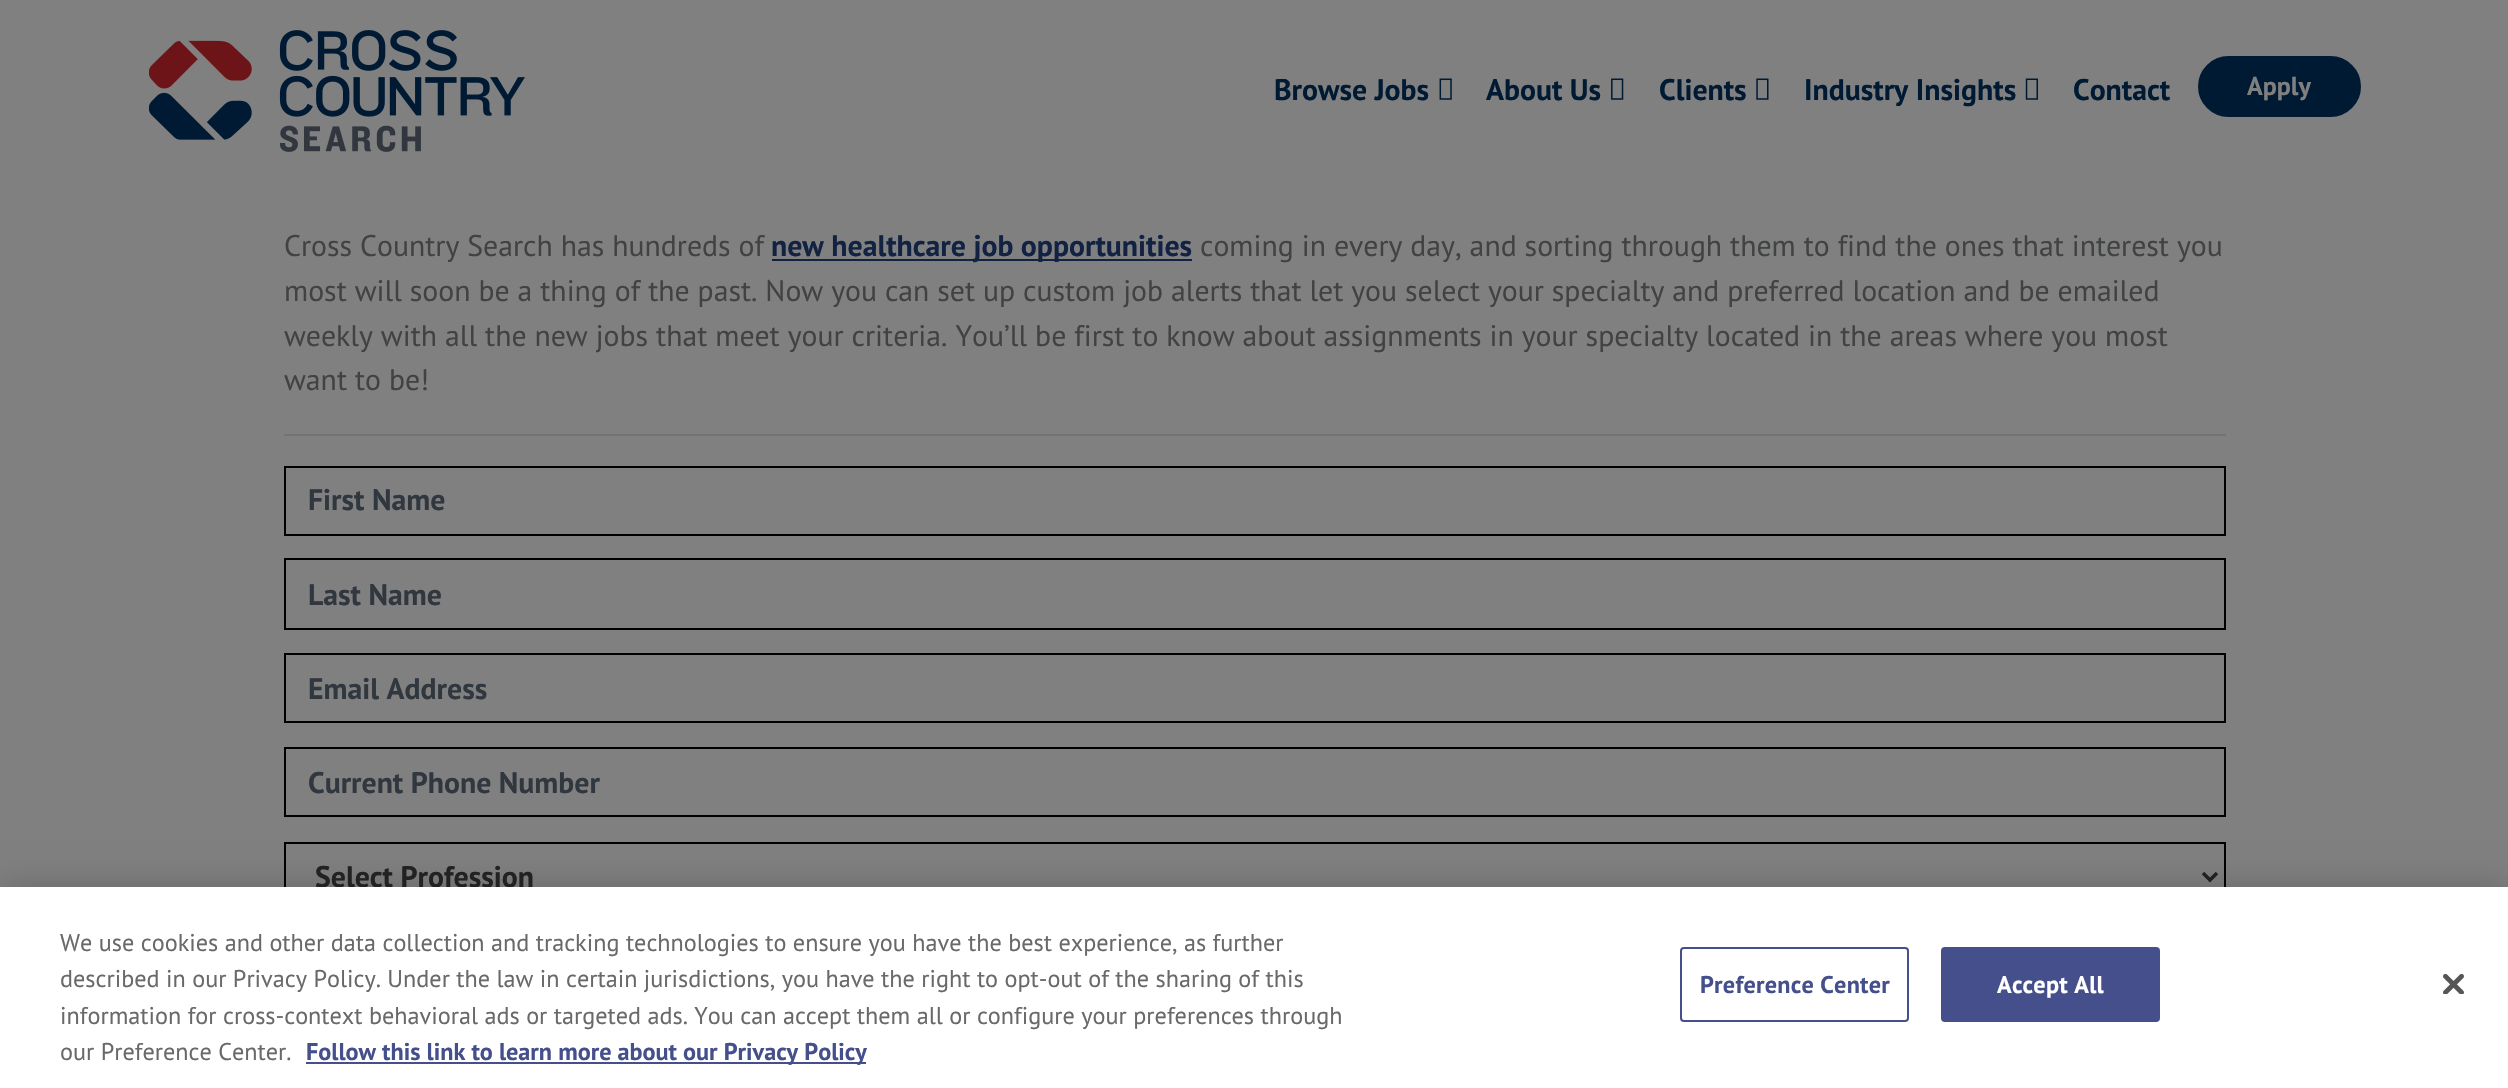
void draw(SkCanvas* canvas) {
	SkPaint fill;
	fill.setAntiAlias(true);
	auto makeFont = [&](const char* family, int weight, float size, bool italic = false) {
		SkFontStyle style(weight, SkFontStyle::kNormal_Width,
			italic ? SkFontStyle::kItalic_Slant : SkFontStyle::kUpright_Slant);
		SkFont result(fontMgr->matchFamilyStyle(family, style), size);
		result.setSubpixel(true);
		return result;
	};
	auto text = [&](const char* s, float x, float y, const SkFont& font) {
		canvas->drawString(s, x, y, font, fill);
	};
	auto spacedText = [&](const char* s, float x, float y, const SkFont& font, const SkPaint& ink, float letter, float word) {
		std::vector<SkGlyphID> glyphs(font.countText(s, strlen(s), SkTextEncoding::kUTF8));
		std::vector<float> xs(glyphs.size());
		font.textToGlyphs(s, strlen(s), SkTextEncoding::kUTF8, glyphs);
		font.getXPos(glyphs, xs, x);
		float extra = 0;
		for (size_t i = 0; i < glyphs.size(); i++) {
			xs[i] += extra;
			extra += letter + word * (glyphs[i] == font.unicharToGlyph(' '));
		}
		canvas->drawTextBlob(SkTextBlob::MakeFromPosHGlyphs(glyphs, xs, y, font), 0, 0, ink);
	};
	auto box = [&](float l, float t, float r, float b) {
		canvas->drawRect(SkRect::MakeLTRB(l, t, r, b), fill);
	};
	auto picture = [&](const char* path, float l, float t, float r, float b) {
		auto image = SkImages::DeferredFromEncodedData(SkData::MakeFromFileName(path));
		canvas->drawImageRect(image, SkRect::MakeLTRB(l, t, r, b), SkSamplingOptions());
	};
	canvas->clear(0xFF808080);
	picture("image0.png", 149, 30, 525, 152);
	picture("image1.png", 1439, 78, 1452, 100);
	picture("image2.png", 1611, 78, 1624, 100);
	picture("image3.png", 1756, 78, 1769, 100);
	picture("image4.png", 2025, 78, 2039, 100);
	fill.setColor(0xFF001A33);
	canvas->drawRoundRect(SkRect::MakeLTRB(2199, 57, 2360, 116), 29.5f, 29.5f, fill);
	fill.setStyle(SkPaint::kStroke_Style);
	fill.setStrokeWidth(2);
	canvas->drawRoundRect(SkRect::MakeLTRB(2199, 57, 2360, 116), 29.5f, 29.5f, fill);
	fill.setStyle(SkPaint::kFill_Style);
	fill.setColor(0xFF122243);
	box(772, 259, 1192, 261);
	fill.setColor(0xFF737373);
	box(284, 434, 2226, 436);
	fill.setStyle(SkPaint::kStroke_Style);
	fill.setColor(0xFF000000);
	canvas->drawRect(SkRect::MakeLTRB(285, 467, 2225, 535), fill);
	canvas->drawRect(SkRect::MakeLTRB(285, 559, 2225, 629), fill);
	canvas->drawRect(SkRect::MakeLTRB(285, 654, 2225, 722), fill);
	canvas->drawRect(SkRect::MakeLTRB(285, 748, 2225, 816), fill);
	canvas->drawRect(SkRect::MakeLTRB(285, 843, 2225, 911), fill);
	fill.setStrokeWidth(3.5f);
	fill.setColor(0xFF222222);
	canvas->drawPath(SkPathBuilder().moveTo(2203, 873).lineTo(2210, 880).lineTo(2217, 873).detach(), fill);
	fill.setStyle(SkPaint::kFill_Style);
	fill.setColor(0x33000000);
	fill.setMaskFilter(SkMaskFilter::MakeBlur(kNormal_SkBlurStyle, 16));
	canvas->drawRect(SkRect::MakeLTRB(0, 887, 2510, 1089), fill);
	fill.setMaskFilter(nullptr);
	auto font1 = makeFont("PT Sans", 700, 29.75f);
	fill.setColor(0xFF001A33);
	text("Browse Jobs", 1274, 100, font1);
	text("About Us", 1486, 100, font1);
	text("Clients", 1659, 100, font1);
	text("Industry Insights", 1804, 100, font1);
	text("Contact", 2073, 100, font1);
	auto font2 = makeFont("PT Sans", 700, 26);
	fill.setColor(0xFF808080);
	text("Apply", 2247, 95, font2);
	auto font3 = makeFont("PT Sans", 400, 29.75f);
	fill.setColor(0xFF414243);
	text("Cross Country Search has hundreds of", 284, 256, font3);
	fill.setColor(0xFF122243);
	text("new healthcare job opportunities", 771, 256, font1);
	fill.setColor(0xFF414243);
	text("coming in every day, and sorting through them to find the ones that interest you", 1200, 256, font3);
	text("most will soon be a thing of the past. Now you can set up custom job alerts that let you select your specialty and preferred location and be emailed", 284, 301, font3);
	text("weekly with all the new jobs that meet your criteria. You’ll be first to know about assignments in your specialty located in the areas where you most", 284, 346, font3);
	text("want to be!", 284, 390, font3);
	fill.setColor(0xFF31373F);
	text("First Name", 308, 510, font1);
	text("Last Name", 308, 605, font1);
	text("Email Address", 308, 699, font1);
	text("Current Phone Number", 308, 793, font1);
	fill.setColor(0xFF222222);
	text("Select Profession", 315, 887, font1);
	fill.setColor(0xFFFFFFFF);
	box(0, 887, 2508, 1088);
	auto font4 = makeFont("PT Sans", 400, 24.2f);
	fill.setColor(0xFF696969);
	text("We use cookies and other data collection and tracking technologies to ensure you have the best experience, as further", 60, 951, font4);
	text("described in our Privacy Policy. Under the law in certain jurisdictions, you have the right to opt-out of the sharing of this", 60, 987, font4);
	text("information for cross-context behavioral ads or targeted ads. You can accept them all or configure your preferences through", 60, 1024, font4);
	text("our Preference Center.", 60, 1060, font4);
	fill.setColor(0xFF444F8B);
	box(306, 1062, 866, 1064);
	auto font5 = makeFont("PT Sans", 700, 24.2f);
	text("Follow this link to learn more about our Privacy Policy", 306, 1060, font5);
	fill.setStyle(SkPaint::kStroke_Style);
	fill.setStrokeWidth(2);
	canvas->drawRoundRect(SkRect::MakeLTRB(1681, 948, 1908, 1021), 3, 3, fill);
	fill.setStyle(SkPaint::kFill_Style);
	spacedText("Preference Center", 1700, 993, font5, fill, 0.25f, 0);
	canvas->drawRoundRect(SkRect::MakeLTRB(1942, 948, 2159, 1021), 3, 3, fill);
	fill.setStyle(SkPaint::kStroke_Style);
	canvas->drawRoundRect(SkRect::MakeLTRB(1942, 948, 2159, 1021), 3, 3, fill);
	fill.setStyle(SkPaint::kFill_Style);
	fill.setColor(0xFFFFFFFF);
	spacedText("Accept All", 1997, 993, font5, fill, 0.25f, 0);
	picture("image5.png", 2443, 973, 2464, 994);
}
